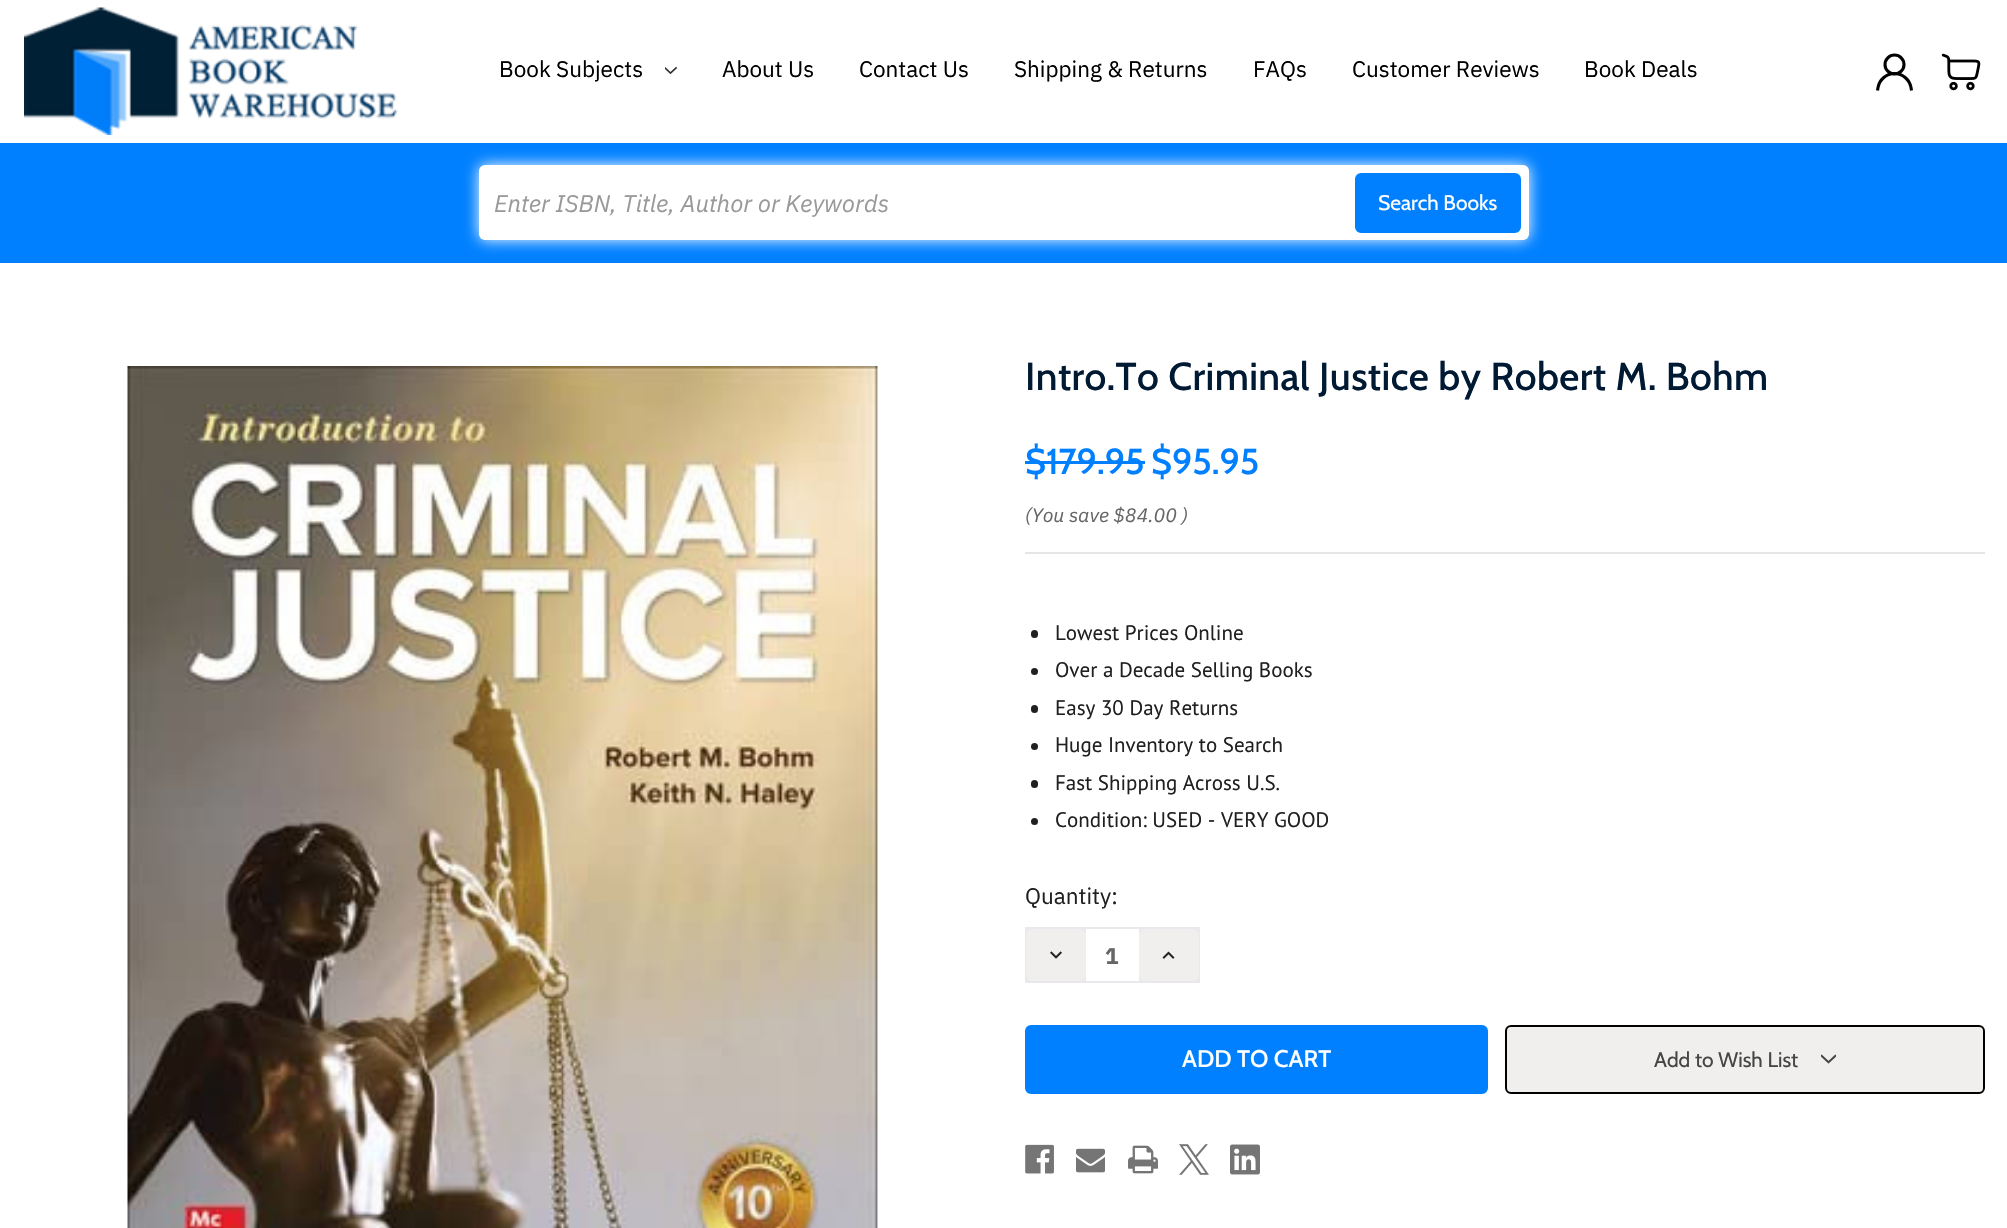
void draw(SkCanvas* canvas) {
	SkPaint fill;
	fill.setAntiAlias(true);
	auto makeFont = [&](const char* family, int weight, float size, bool italic = false) {
		SkFontStyle style(weight, SkFontStyle::kNormal_Width,
			italic ? SkFontStyle::kItalic_Slant : SkFontStyle::kUpright_Slant);
		SkFont result(fontMgr->matchFamilyStyle(family, style), size);
		result.setSubpixel(true);
		return result;
	};
	auto text = [&](const char* s, float x, float y, const SkFont& font) {
		canvas->drawString(s, x, y, font, fill);
	};
	auto spacedText = [&](const char* s, float x, float y, const SkFont& font, const SkPaint& ink, float letter, float word) {
		std::vector<SkGlyphID> glyphs(font.countText(s, strlen(s), SkTextEncoding::kUTF8));
		std::vector<float> xs(glyphs.size());
		font.textToGlyphs(s, strlen(s), SkTextEncoding::kUTF8, glyphs);
		font.getXPos(glyphs, xs, x);
		float extra = 0;
		for (size_t i = 0; i < glyphs.size(); i++) {
			xs[i] += extra;
			extra += letter + word * (glyphs[i] == font.unicharToGlyph(' '));
		}
		canvas->drawTextBlob(SkTextBlob::MakeFromPosHGlyphs(glyphs, xs, y, font), 0, 0, ink);
	};
	auto box = [&](float l, float t, float r, float b) {
		canvas->drawRect(SkRect::MakeLTRB(l, t, r, b), fill);
	};
	auto roundBox = [&](float l, float t, float r, float b, float radius) {
		canvas->drawRoundRect(SkRect::MakeLTRB(l, t, r, b), radius, radius, fill);
	};
	auto picture = [&](const char* path, float l, float t, float r, float b) {
		auto image = SkImages::DeferredFromEncodedData(SkData::MakeFromFileName(path));
		canvas->drawImageRect(image, SkRect::MakeLTRB(l, t, r, b), SkSamplingOptions());
	};
	canvas->clear(0xFFFFFFFF);
	picture("image0.png", 24, 7, 398, 135);
	picture("image1.png", 665, 66, 677, 75);
	fill.setStyle(SkPaint::kStroke_Style);
	fill.setStrokeWidth(3.1f);
	fill.setColor(0xFF020202);
	canvas->drawCircle(1894.5f, 64.5f, 9.5f, fill);
	canvas->drawPath(SkPathBuilder().moveTo(1877.5f, 90.5f).lineTo(1878, 87.5f).cubicTo(1879.5f, 79.5f, 1886.5f, 73.5f, 1894.5f, 73.5f).cubicTo(1902.5f, 73.5f, 1909.5f, 79.5f, 1911, 87.5f).lineTo(1911.5f, 90.5f).detach(), fill);
	picture("image2.png", 1941, 53, 1981, 91);
	fill.setStyle(SkPaint::kFill_Style);
	fill.setColor(0xFF0080FF);
	box(0, 143, 2007, 263);
	fill.setColor(0xFFFFFFFF);
	fill.setMaskFilter(SkMaskFilter::MakeBlur(kNormal_SkBlurStyle, 7.5f));
	canvas->drawRoundRect(SkRect::MakeLTRB(479, 165, 1529, 240), 6, 6, fill);
	fill.setMaskFilter(nullptr);
	roundBox(479, 165, 1529, 240, 6);
	fill.setColor(0xFF0080FF);
	canvas->drawRoundRect(SkRect::MakeLTRB(1356, 174, 1520, 232), 5, 5, fill);
	fill.setStyle(SkPaint::kStroke_Style);
	fill.setStrokeWidth(2);
	canvas->drawRoundRect(SkRect::MakeLTRB(1356, 174, 1520, 232), 5, 5, fill);
	picture("image3.png", 127, 366, 878, 1228);
	fill.setStyle(SkPaint::kFill_Style);
	fill.setColor(0xFFE5E5E5);
	box(1025, 552, 1985, 554);
	fill.setColor(0xFF0080FF);
	box(1025, 461, 1145, 464);
	fill.setColor(0xFF202020);
	roundBox(1031, 630, 1038, 638, 3.5f);
	canvas->drawCircle(1034.5f, 671.5f, 3.5f, fill);
	roundBox(1031, 705, 1038, 713, 3.5f);
	canvas->drawCircle(1034.5f, 746.5f, 3.5f, fill);
	roundBox(1031, 780, 1038, 788, 3.5f);
	canvas->drawCircle(1034.5f, 821.5f, 3.5f, fill);
	fill.setColor(0xFFE9E9ED);
	box(1025, 927, 1200, 983);
	fill.setColor(0xFFF0EFEE);
	roundBox(1026, 929, 1086, 981, 6);
	picture("image4.png", 1050, 951, 1062, 959);
	fill.setColor(0xFFFFFFFF);
	box(1086, 929, 1139, 981);
	fill.setColor(0xFFF0EFEE);
	roundBox(1139, 929, 1199, 981, 6);
	picture("image5.png", 1162, 951, 1175, 959);
	fill.setColor(0xFF0080FF);
	canvas->drawRoundRect(SkRect::MakeLTRB(1026.5f, 1026.5f, 1486.5f, 1092.5f), 4.5f, 4.5f, fill);
	fill.setStyle(SkPaint::kStroke_Style);
	fill.setStrokeWidth(3);
	canvas->drawRoundRect(SkRect::MakeLTRB(1026.5f, 1026.5f, 1486.5f, 1092.5f), 4.5f, 4.5f, fill);
	fill.setStyle(SkPaint::kFill_Style);
	fill.setColor(0xFFF0EFEE);
	canvas->drawRoundRect(SkRect::MakeLTRB(1506, 1026, 1984, 1093), 5, 5, fill);
	fill.setStyle(SkPaint::kStroke_Style);
	fill.setStrokeWidth(2);
	fill.setColor(0xFF000000);
	canvas->drawRoundRect(SkRect::MakeLTRB(1506, 1026, 1984, 1093), 5, 5, fill);
	picture("image6.png", 1821, 1054, 1836, 1064);
	picture("image7.png", 1025, 1144, 1054, 1174);
	picture("image8.png", 1076, 1148, 1105, 1173);
	picture("image9.png", 1128, 1145, 1158, 1174);
	picture("image10.png", 1179, 1144, 1209, 1175);
	picture("image11.png", 1230, 1144, 1260, 1175);
	auto font1 = makeFont("IBM Plex Sans", 400, 22.5f);
	fill.setStyle(SkPaint::kFill_Style);
	text("Book Subjects", 499, 77, font1);
	text("About Us", 722, 77, font1);
	text("Contact Us", 859, 77, font1);
	text("Shipping & Returns", 1014, 77, font1);
	text("FAQs", 1253, 77, font1);
	text("Customer Reviews", 1352, 77, font1);
	text("Book Deals", 1584, 77, font1);
	auto font2 = makeFont("IBM Plex Sans", 400, 24, true);
	fill.setColor(0xFF999999);
	text("Enter ISBN, Title, Author or Keywords", 494, 212, font2);
	auto font3 = makeFont("Cabin", 400, 21);
	fill.setColor(0xFFFFFFFF);
	text("Search Books", 1378, 210, font3);
	auto font4 = makeFont("Cabin", 500, 39);
	fill.setColor(0xFF001A33);
	spacedText("Intro.To Criminal Justice by Robert M. Bohm", 1025, 390, font4, fill, 0.4f, 0);
	auto font5 = makeFont("Cabin", 500, 36);
	fill.setColor(0xFF0080FF);
	text("$179.95", 1025, 474, font5);
	text("$95.95", 1151, 474, font5);
	auto font6 = makeFont("IBM Plex Sans", 400, 19.5f, true);
	fill.setColor(0xFF666666);
	text("(You save $84.00 )", 1025, 522, font6);
	auto font7 = makeFont("PT Sans", 400, 21);
	fill.setColor(0xFF202020);
	text("Lowest Prices Online", 1055, 640, font7);
	text("Over a Decade Selling Books", 1055, 677, font7);
	text("Easy 30 Day Returns", 1055, 715, font7);
	text("Huge Inventory to Search", 1055, 752, font7);
	text("Fast Shipping Across U.S.", 1055, 790, font7);
	text("Condition: USED - VERY GOOD", 1055, 827, font7);
	text("Quantity:", 1025, 904, font1);
	auto font8 = makeFont("IBM Plex Sans", 700, 22.5f);
	fill.setColor(0xFF666666);
	text("1", 1105, 964, font8);
	auto font9 = makeFont("Cabin", 500, 24);
	fill.setColor(0xFFFFFFFF);
	text("ADD TO CART", 1182, 1067, font9);
	fill.setColor(0xFF454545);
	text("Add to Wish List", 1654, 1067, font3);
}
